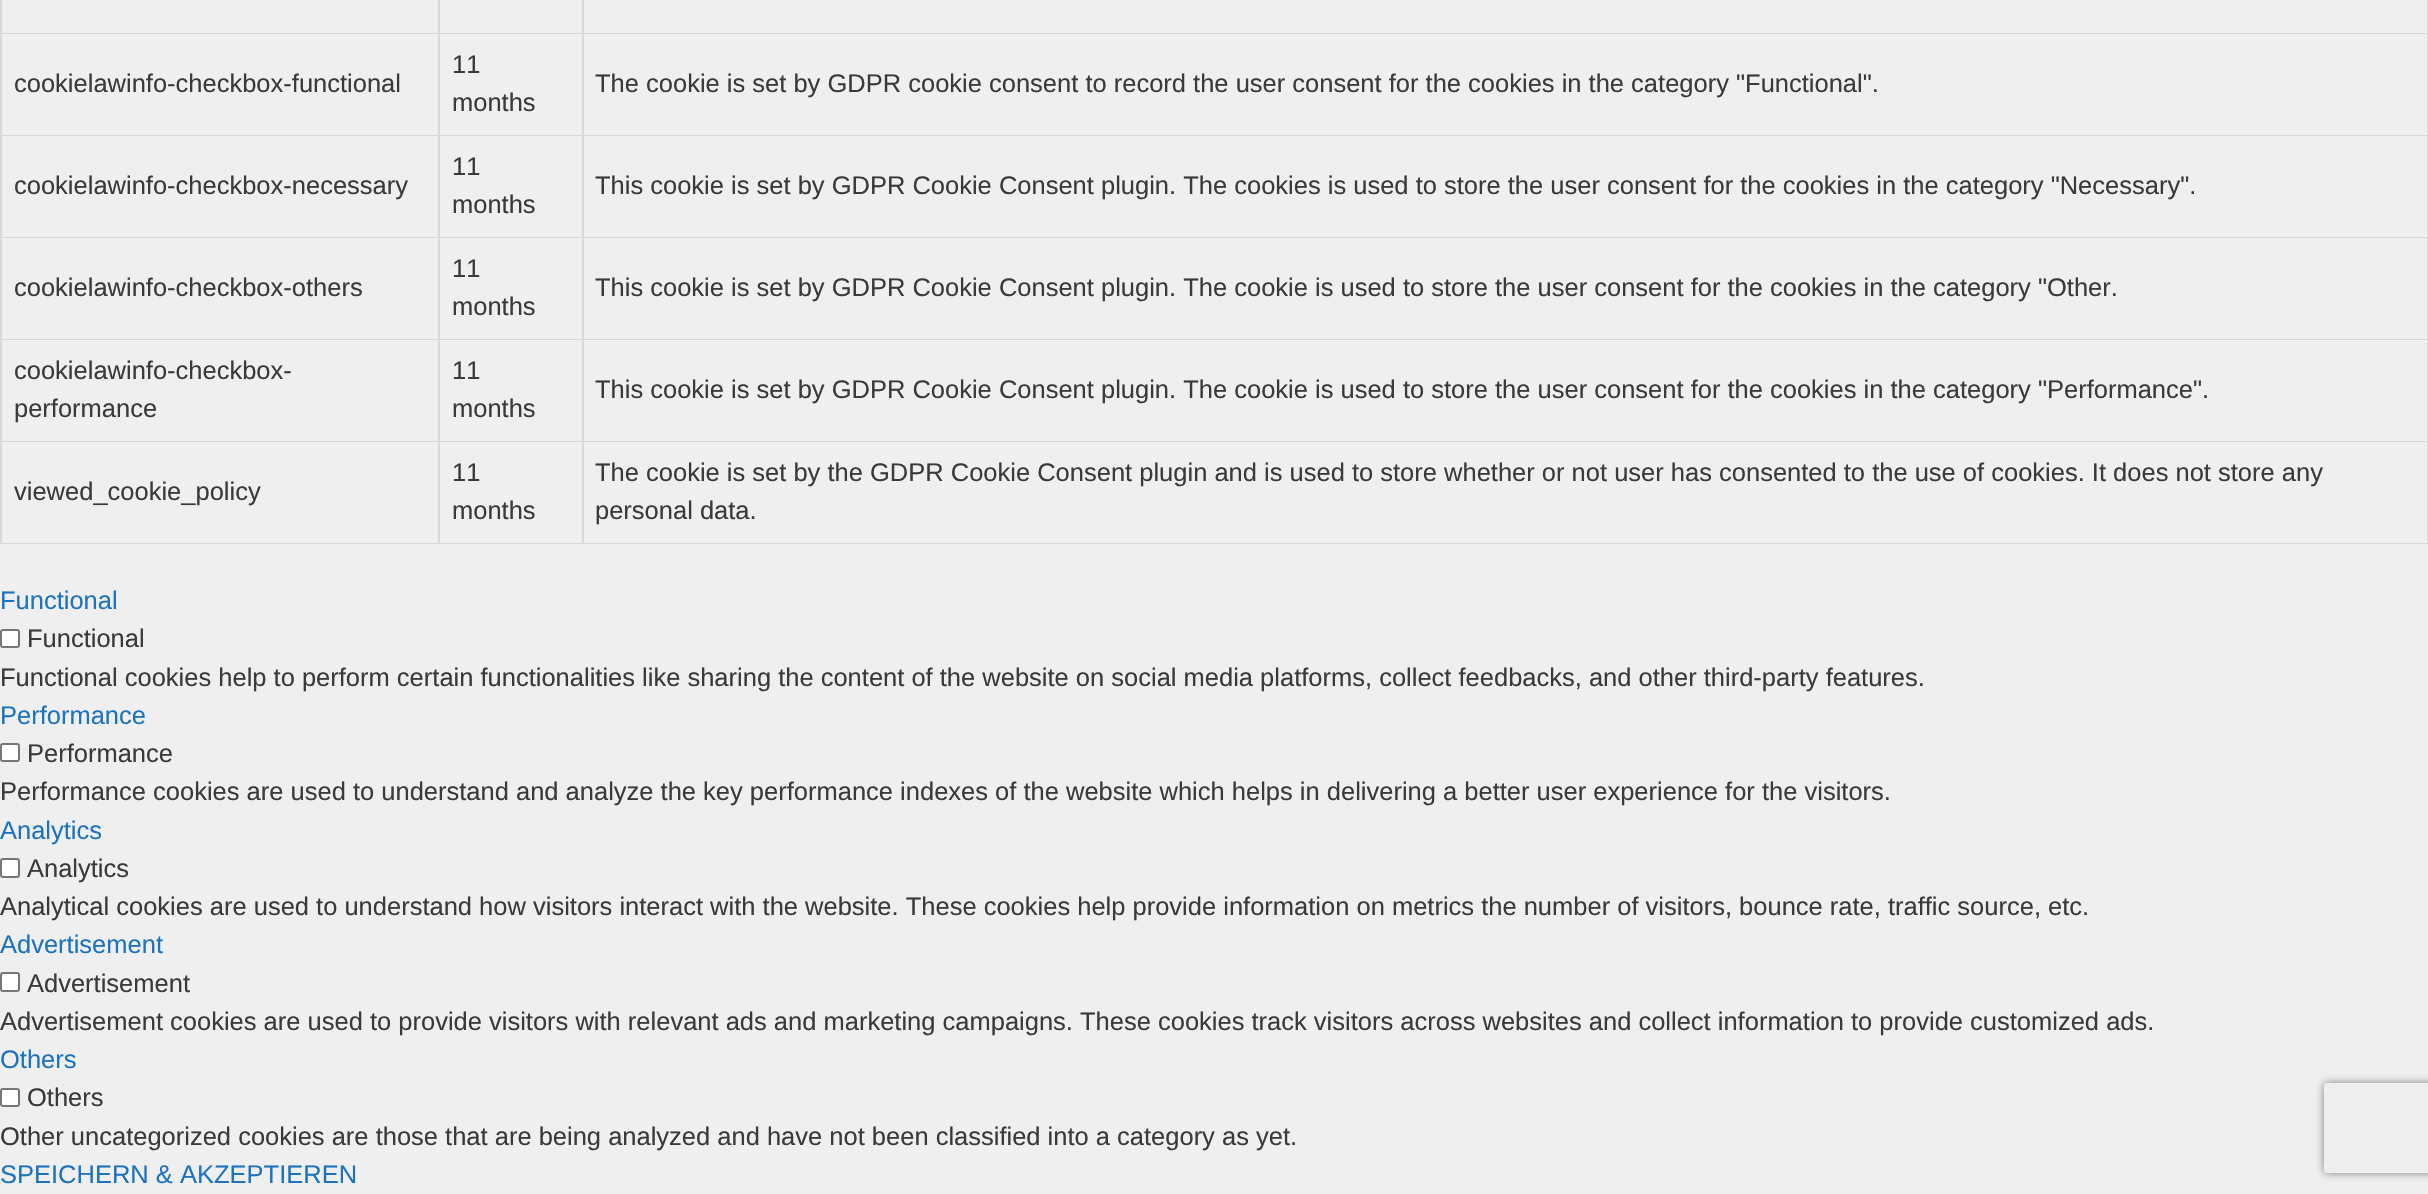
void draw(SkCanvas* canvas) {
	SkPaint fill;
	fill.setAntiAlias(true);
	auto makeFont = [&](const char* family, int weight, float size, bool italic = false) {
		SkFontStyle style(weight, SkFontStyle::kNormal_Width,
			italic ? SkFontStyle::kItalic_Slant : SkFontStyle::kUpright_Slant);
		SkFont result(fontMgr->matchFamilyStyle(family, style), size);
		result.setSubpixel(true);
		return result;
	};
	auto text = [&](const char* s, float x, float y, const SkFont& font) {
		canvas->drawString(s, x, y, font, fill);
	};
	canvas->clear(0xFFEFEFEF);
	fill.setColor(0xFFD7D7D7);
	canvas->drawPath(SkPathBuilder().moveTo(0, 544).lineTo(0, -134).lineTo(2, -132).lineTo(2, 544).close().detach(), fill);
	canvas->drawPath(SkPathBuilder().moveTo(440, -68).lineTo(440, 34).lineTo(438, 33).lineTo(438, -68).close().detach(), fill);
	fill.setColor(0x1A000000);
	canvas->drawPath(SkPathBuilder().moveTo(440, 34).lineTo(2, 34).lineTo(2, 33).lineTo(438, 33).close().detach(), fill);
	fill.setColor(0xFFD7D7D7);
	canvas->drawPath(SkPathBuilder().moveTo(584, -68).lineTo(584, 34).lineTo(582, 33).lineTo(582, -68).close().detach(), fill);
	fill.setColor(0x1A000000);
	canvas->drawPath(SkPathBuilder().moveTo(584, 34).lineTo(440, 34).lineTo(440, 33).lineTo(582, 33).close().detach(), fill);
	fill.setColor(0xFFD7D7D7);
	canvas->drawPath(SkPathBuilder().moveTo(2428, -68).lineTo(2428, 34).lineTo(2427, 33).lineTo(2427, -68).close().detach(), fill);
	fill.setColor(0x1A000000);
	canvas->drawPath(SkPathBuilder().moveTo(2428, 34).lineTo(584, 34).lineTo(584, 33).lineTo(2427, 33).close().detach(), fill);
	fill.setColor(0xFFD7D7D7);
	canvas->drawPath(SkPathBuilder().moveTo(440, 34).lineTo(440, 136).lineTo(438, 135).lineTo(438, 34).close().detach(), fill);
	fill.setColor(0x1A000000);
	canvas->drawPath(SkPathBuilder().moveTo(440, 136).lineTo(2, 136).lineTo(2, 135).lineTo(438, 135).close().detach(), fill);
	fill.setColor(0xFFD7D7D7);
	canvas->drawPath(SkPathBuilder().moveTo(584, 34).lineTo(584, 136).lineTo(582, 135).lineTo(582, 34).close().detach(), fill);
	fill.setColor(0x1A000000);
	canvas->drawPath(SkPathBuilder().moveTo(584, 136).lineTo(440, 136).lineTo(440, 135).lineTo(582, 135).close().detach(), fill);
	fill.setColor(0xFFD7D7D7);
	canvas->drawPath(SkPathBuilder().moveTo(2428, 34).lineTo(2428, 136).lineTo(2427, 135).lineTo(2427, 34).close().detach(), fill);
	fill.setColor(0x1A000000);
	canvas->drawPath(SkPathBuilder().moveTo(2428, 136).lineTo(584, 136).lineTo(584, 135).lineTo(2427, 135).close().detach(), fill);
	fill.setColor(0xFFD7D7D7);
	canvas->drawPath(SkPathBuilder().moveTo(440, 136).lineTo(440, 238).lineTo(438, 237).lineTo(438, 136).close().detach(), fill);
	fill.setColor(0x1A000000);
	canvas->drawPath(SkPathBuilder().moveTo(440, 238).lineTo(2, 238).lineTo(2, 237).lineTo(438, 237).close().detach(), fill);
	fill.setColor(0xFFD7D7D7);
	canvas->drawPath(SkPathBuilder().moveTo(584, 136).lineTo(584, 238).lineTo(582, 237).lineTo(582, 136).close().detach(), fill);
	fill.setColor(0x1A000000);
	canvas->drawPath(SkPathBuilder().moveTo(584, 238).lineTo(440, 238).lineTo(440, 237).lineTo(582, 237).close().detach(), fill);
	fill.setColor(0xFFD7D7D7);
	canvas->drawPath(SkPathBuilder().moveTo(2428, 136).lineTo(2428, 238).lineTo(2427, 237).lineTo(2427, 136).close().detach(), fill);
	fill.setColor(0x1A000000);
	canvas->drawPath(SkPathBuilder().moveTo(2428, 238).lineTo(584, 238).lineTo(584, 237).lineTo(2427, 237).close().detach(), fill);
	fill.setColor(0xFFD7D7D7);
	canvas->drawPath(SkPathBuilder().moveTo(440, 238).lineTo(440, 340).lineTo(438, 339).lineTo(438, 238).close().detach(), fill);
	fill.setColor(0x1A000000);
	canvas->drawPath(SkPathBuilder().moveTo(440, 340).lineTo(2, 340).lineTo(2, 339).lineTo(438, 339).close().detach(), fill);
	fill.setColor(0xFFD7D7D7);
	canvas->drawPath(SkPathBuilder().moveTo(584, 238).lineTo(584, 340).lineTo(582, 339).lineTo(582, 238).close().detach(), fill);
	fill.setColor(0x1A000000);
	canvas->drawPath(SkPathBuilder().moveTo(584, 340).lineTo(440, 340).lineTo(440, 339).lineTo(582, 339).close().detach(), fill);
	fill.setColor(0xFFD7D7D7);
	canvas->drawPath(SkPathBuilder().moveTo(2428, 238).lineTo(2428, 340).lineTo(2427, 339).lineTo(2427, 238).close().detach(), fill);
	fill.setColor(0x1A000000);
	canvas->drawPath(SkPathBuilder().moveTo(2428, 340).lineTo(584, 340).lineTo(584, 339).lineTo(2427, 339).close().detach(), fill);
	fill.setColor(0xFFD7D7D7);
	canvas->drawPath(SkPathBuilder().moveTo(440, 340).lineTo(440, 442).lineTo(438, 441).lineTo(438, 340).close().detach(), fill);
	fill.setColor(0x1A000000);
	canvas->drawPath(SkPathBuilder().moveTo(440, 442).lineTo(2, 442).lineTo(2, 441).lineTo(438, 441).close().detach(), fill);
	fill.setColor(0xFFD7D7D7);
	canvas->drawPath(SkPathBuilder().moveTo(584, 340).lineTo(584, 442).lineTo(582, 441).lineTo(582, 340).close().detach(), fill);
	fill.setColor(0x1A000000);
	canvas->drawPath(SkPathBuilder().moveTo(584, 442).lineTo(440, 442).lineTo(440, 441).lineTo(582, 441).close().detach(), fill);
	fill.setColor(0xFFD7D7D7);
	canvas->drawPath(SkPathBuilder().moveTo(2428, 340).lineTo(2428, 442).lineTo(2427, 441).lineTo(2427, 340).close().detach(), fill);
	fill.setColor(0x1A000000);
	canvas->drawPath(SkPathBuilder().moveTo(2428, 442).lineTo(584, 442).lineTo(584, 441).lineTo(2427, 441).close().detach(), fill);
	fill.setColor(0xFFD7D7D7);
	canvas->drawPath(SkPathBuilder().moveTo(440, 442).lineTo(440, 544).lineTo(438, 543).lineTo(438, 442).close().detach(), fill);
	fill.setColor(0x1A000000);
	canvas->drawPath(SkPathBuilder().moveTo(440, 544).lineTo(2, 544).lineTo(2, 543).lineTo(438, 543).close().detach(), fill);
	fill.setColor(0xFFD7D7D7);
	canvas->drawPath(SkPathBuilder().moveTo(584, 442).lineTo(584, 544).lineTo(582, 543).lineTo(582, 442).close().detach(), fill);
	fill.setColor(0x1A000000);
	canvas->drawPath(SkPathBuilder().moveTo(584, 544).lineTo(440, 544).lineTo(440, 543).lineTo(582, 543).close().detach(), fill);
	fill.setColor(0xFFD7D7D7);
	canvas->drawPath(SkPathBuilder().moveTo(2428, 442).lineTo(2428, 544).lineTo(2427, 543).lineTo(2427, 442).close().detach(), fill);
	fill.setColor(0x1A000000);
	canvas->drawPath(SkPathBuilder().moveTo(2428, 544).lineTo(584, 544).lineTo(584, 543).lineTo(2427, 543).close().detach(), fill);
	fill.setColor(0xFFFFFFFF);
	canvas->drawRoundRect(SkRect::MakeLTRB(1, 630, 19, 647), 2, 2, fill);
	fill.setStyle(SkPaint::kStroke_Style);
	fill.setStrokeWidth(2);
	fill.setColor(0xFF767676);
	canvas->drawRoundRect(SkRect::MakeLTRB(1, 630, 19, 647), 2, 2, fill);
	fill.setStyle(SkPaint::kFill_Style);
	fill.setColor(0xFFFFFFFF);
	canvas->drawRoundRect(SkRect::MakeLTRB(1, 744, 19, 761), 2, 2, fill);
	fill.setStyle(SkPaint::kStroke_Style);
	fill.setColor(0xFF767676);
	canvas->drawRoundRect(SkRect::MakeLTRB(1, 744, 19, 761), 2, 2, fill);
	fill.setStyle(SkPaint::kFill_Style);
	fill.setColor(0xFFFFFFFF);
	canvas->drawRoundRect(SkRect::MakeLTRB(1, 859, 19, 877), 2, 2, fill);
	fill.setStyle(SkPaint::kStroke_Style);
	fill.setColor(0xFF767676);
	canvas->drawRoundRect(SkRect::MakeLTRB(1, 859, 19, 877), 2, 2, fill);
	fill.setStyle(SkPaint::kFill_Style);
	fill.setColor(0xFFFFFFFF);
	canvas->drawRoundRect(SkRect::MakeLTRB(1, 973, 19, 991), 2, 2, fill);
	fill.setStyle(SkPaint::kStroke_Style);
	fill.setColor(0xFF767676);
	canvas->drawRoundRect(SkRect::MakeLTRB(1, 973, 19, 991), 2, 2, fill);
	fill.setStyle(SkPaint::kFill_Style);
	fill.setColor(0xFFFFFFFF);
	canvas->drawRoundRect(SkRect::MakeLTRB(1, 1089, 19, 1106), 2, 2, fill);
	fill.setStyle(SkPaint::kStroke_Style);
	fill.setColor(0xFF767676);
	canvas->drawRoundRect(SkRect::MakeLTRB(1, 1089, 19, 1106), 2, 2, fill);
	canvas->save();
	canvas->clipPath(SkPathBuilder(SkPathFillType::kEvenOdd).moveTo(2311, 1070).lineTo(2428, 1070).lineTo(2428, 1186).lineTo(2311, 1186).close().moveTo(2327, 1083).lineTo(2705, 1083).cubicTo(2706.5f, 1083, 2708, 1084.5f, 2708, 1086).lineTo(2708, 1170).cubicTo(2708, 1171.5f, 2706.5f, 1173, 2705, 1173).lineTo(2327, 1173).cubicTo(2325.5f, 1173, 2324, 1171.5f, 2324, 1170).lineTo(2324, 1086).cubicTo(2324, 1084.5f, 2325.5f, 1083, 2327, 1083).close().detach(), true);
	fill.setStyle(SkPaint::kFill_Style);
	fill.setColor(0xFF808080);
	fill.setMaskFilter(SkMaskFilter::MakeBlur(kNormal_SkBlurStyle, 4));
	canvas->drawRoundRect(SkRect::MakeLTRB(2324, 1083, 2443, 1173), 3, 3, fill);
	fill.setMaskFilter(nullptr);
	canvas->restore();
	auto font1 = makeFont("Liberation Sans", 400, 25.5f);
	fill.setColor(0xFF3A3A3A);
	text("cookielawinfo-checkbox-functional", 14, 92, font1);
	text("11", 452, 73, font1);
	text("months", 452, 111, font1);
	text("The cookie is set by GDPR cookie consent to record the user consent for the cookies in the category \"Functional\".", 595, 92, font1);
	text("cookielawinfo-checkbox-necessary", 14, 194, font1);
	text("11", 452, 175, font1);
	text("months", 452, 213, font1);
	text("This cookie is set by GDPR Cookie Consent plugin. The cookies is used to store the user consent for the cookies in the category \"Necessary\".", 595, 194, font1);
	text("cookielawinfo-checkbox-others", 14, 296, font1);
	text("11", 452, 277, font1);
	text("months", 452, 315, font1);
	text("This cookie is set by GDPR Cookie Consent plugin. The cookie is used to store the user consent for the cookies in the category \"Other.", 595, 296, font1);
	text("cookielawinfo-checkbox-", 14, 379, font1);
	text("performance", 14, 417, font1);
	text("11", 452, 379, font1);
	text("months", 452, 417, font1);
	text("This cookie is set by GDPR Cookie Consent plugin. The cookie is used to store the user consent for the cookies in the category \"Performance\".", 595, 398, font1);
	text("viewed_cookie_policy", 14, 500, font1);
	text("11", 452, 481, font1);
	text("months", 452, 519, font1);
	text("The cookie is set by the GDPR Cookie Consent plugin and is used to store whether or not user has consented to the use of cookies. It does not store any", 595, 481, font1);
	text("personal data.", 595, 519, font1);
	fill.setColor(0xFF1E73BE);
	text("Functional", 0, 609, font1);
	fill.setColor(0xFF3A3A3A);
	text("Functional", 27, 647, font1);
	text("Functional cookies help to perform certain functionalities like sharing the content of the website on social media platforms, collect feedbacks, and other third-party features.", 0, 686, font1);
	fill.setColor(0xFF1E73BE);
	text("Performance", 0, 724, font1);
	fill.setColor(0xFF3A3A3A);
	text("Performance", 27, 762, font1);
	text("Performance cookies are used to understand and analyze the key performance indexes of the website which helps in delivering a better user experience for the visitors.", 0, 800, font1);
	fill.setColor(0xFF1E73BE);
	text("Analytics", 0, 839, font1);
	fill.setColor(0xFF3A3A3A);
	text("Analytics", 27, 877, font1);
	text("Analytical cookies are used to understand how visitors interact with the website. These cookies help provide information on metrics the number of visitors, bounce rate, traffic source, etc.", 0, 915, font1);
	fill.setColor(0xFF1E73BE);
	text("Advertisement", 0, 953, font1);
	fill.setColor(0xFF3A3A3A);
	text("Advertisement", 27, 992, font1);
	text("Advertisement cookies are used to provide visitors with relevant ads and marketing campaigns. These cookies track visitors across websites and collect information to provide customized ads.", 0, 1030, font1);
	fill.setColor(0xFF1E73BE);
	text("Others", 0, 1068, font1);
	fill.setColor(0xFF3A3A3A);
	text("Others", 27, 1106, font1);
	text("Other uncategorized cookies are those that are being analyzed and have not been classified into a category as yet.", 0, 1145, font1);
	fill.setColor(0xFF1E73BE);
	text("SPEICHERN & AKZEPTIEREN", 0, 1183, font1);
}
